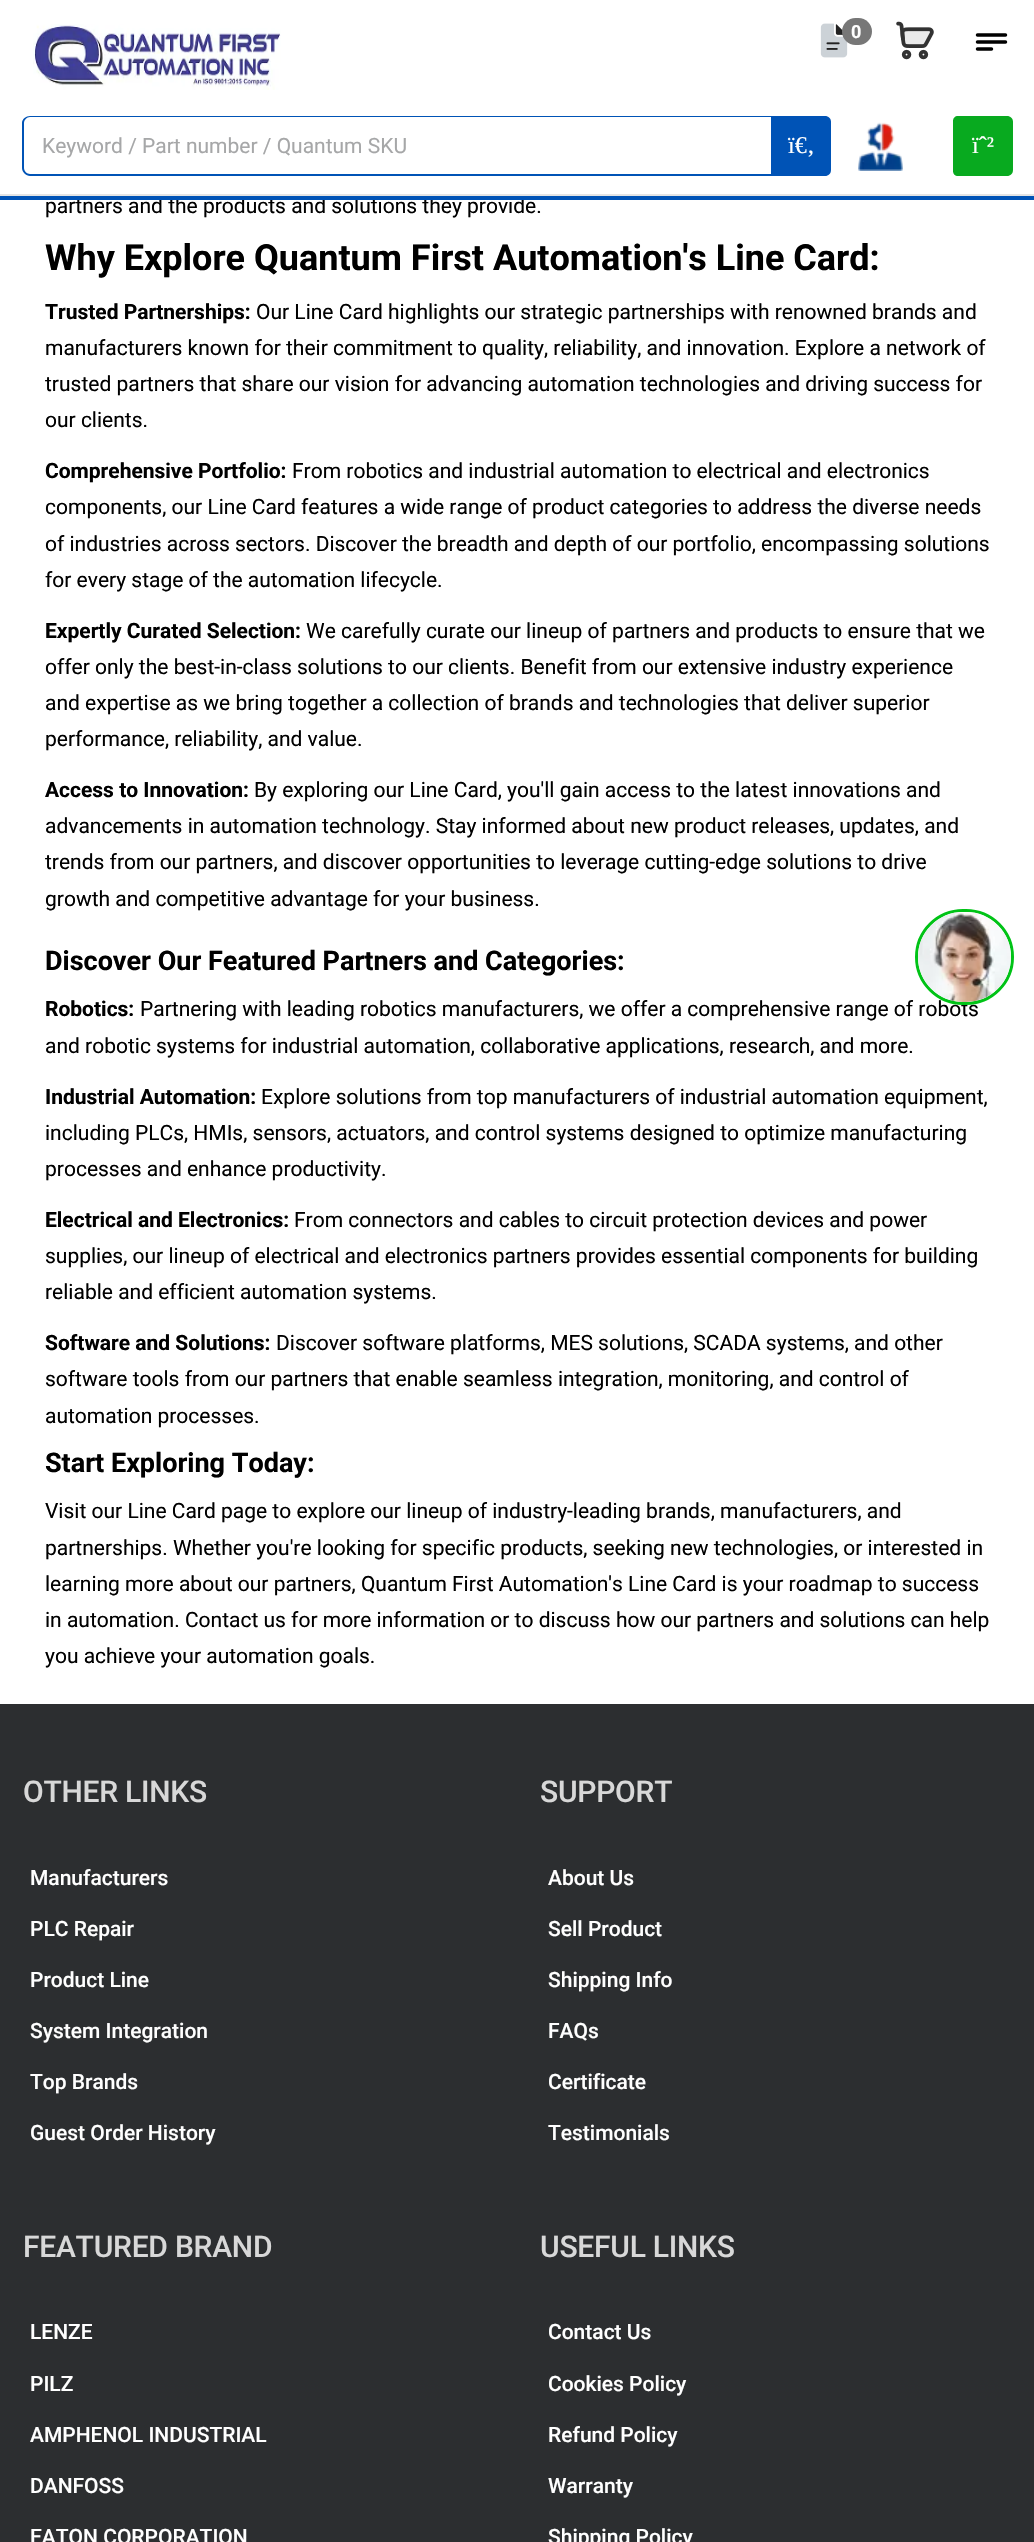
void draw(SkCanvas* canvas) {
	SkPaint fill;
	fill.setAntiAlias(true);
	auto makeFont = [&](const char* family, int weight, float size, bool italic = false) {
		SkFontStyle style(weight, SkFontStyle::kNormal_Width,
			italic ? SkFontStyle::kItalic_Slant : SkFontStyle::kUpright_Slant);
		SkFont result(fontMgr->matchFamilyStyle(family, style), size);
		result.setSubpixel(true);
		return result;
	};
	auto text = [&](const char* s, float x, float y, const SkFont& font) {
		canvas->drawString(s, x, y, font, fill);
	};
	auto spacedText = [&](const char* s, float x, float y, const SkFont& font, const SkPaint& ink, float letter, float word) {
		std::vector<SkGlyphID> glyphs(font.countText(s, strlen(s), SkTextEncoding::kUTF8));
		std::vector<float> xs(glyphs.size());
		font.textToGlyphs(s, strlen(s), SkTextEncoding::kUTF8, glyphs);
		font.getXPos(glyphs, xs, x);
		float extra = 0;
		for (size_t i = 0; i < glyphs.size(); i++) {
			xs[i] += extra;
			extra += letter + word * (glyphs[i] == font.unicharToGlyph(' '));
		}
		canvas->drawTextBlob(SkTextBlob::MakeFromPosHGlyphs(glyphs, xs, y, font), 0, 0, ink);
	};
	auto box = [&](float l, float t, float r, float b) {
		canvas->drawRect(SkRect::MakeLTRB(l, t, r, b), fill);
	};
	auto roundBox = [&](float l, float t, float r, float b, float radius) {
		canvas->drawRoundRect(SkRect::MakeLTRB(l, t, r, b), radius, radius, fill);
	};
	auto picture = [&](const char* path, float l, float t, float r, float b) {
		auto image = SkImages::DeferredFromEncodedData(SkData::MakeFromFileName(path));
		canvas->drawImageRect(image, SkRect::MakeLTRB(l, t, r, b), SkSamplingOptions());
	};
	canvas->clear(0xFF2C2E30);
	fill.setColor(0xFFFFFFFF);
	box(0, 0, 1034, 194);
	picture("image0.png", 33, 24, 281, 90);
	picture("image1.png", 820, 23, 848, 58);
	fill.setColor(0xFF777777);
	roundBox(842, 18, 872, 45, 13.5f);
	picture("image2.png", 896, 21, 934, 60);
	fill.setStyle(SkPaint::kStroke_Style);
	fill.setStrokeWidth(3.5f);
	fill.setStrokeCap(SkPaint::kRound_Cap);
	fill.setStrokeJoin(SkPaint::kRound_Join);
	fill.setColor(0xFF000000);
	canvas->drawPath(SkPathBuilder().moveTo(977.5f, 42).lineTo(1005.5f, 42).moveTo(977.5f, 35).lineTo(1005.5f, 35).moveTo(977.5f, 49).lineTo(991.5f, 49).detach(), fill);
	fill.setStyle(SkPaint::kFill_Style);
	fill.setColor(0xFF0053B6);
	canvas->drawPath(SkPathBuilder(SkPathFillType::kEvenOdd).moveTo(30, 116).lineTo(771, 116).lineTo(771, 176).lineTo(30, 176).cubicTo(26, 176, 22, 172, 22, 168).lineTo(22, 123).cubicTo(22, 119, 26, 116, 30, 116).close().moveTo(30, 117).lineTo(771, 117).lineTo(771, 174).lineTo(30, 174).cubicTo(27, 174, 24, 171, 24, 168).lineTo(24, 123).cubicTo(24, 120, 27, 117, 30, 117).close().detach(), fill);
	canvas->drawPath(SkPathBuilder().moveTo(771, 116).lineTo(825, 116).cubicTo(828.5f, 116, 831, 118.5f, 831, 122).lineTo(831, 170).cubicTo(831, 173.5f, 828.5f, 176, 825, 176).lineTo(771, 176).close().detach(), fill);
	picture("image3.png", 858, 122, 903, 171);
	fill.setColor(0xFF08AA1F);
	canvas->drawPath(SkPathBuilder().moveTo(958, 116).lineTo(1007, 116).cubicTo(1010.5f, 116, 1013, 118.5f, 1013, 122).lineTo(1013, 170).cubicTo(1013, 173.5f, 1010.5f, 176, 1007, 176).lineTo(958, 176).cubicTo(955, 176, 953, 174, 953, 171).lineTo(953, 121).cubicTo(953, 118, 955, 116, 958, 116).close().detach(), fill);
	fill.setColor(0xFFE4E4E4);
	box(0, 194, 1034, 196);
	fill.setColor(0xFFFFFFFF);
	box(0, 200, 1034, 1704);
	auto font1 = makeFont("Roboto", 700, 18);
	text("0", 851, 38, font1);
	auto font2 = makeFont("Roboto", 400, 21);
	fill.setColor(0xFFA6A7A8);
	text("Keyword / Part number / Quantum SKU", 42, 153, font2);
	auto font3 = makeFont("Liberation Serif", 400, 24);
	fill.setColor(0xFFFFFFFF);
	text("ï€‚", 788, 153, font3);
	text("ïˆ²", 972, 153, font3);
	fill.setColor(0xFF000000);
	text("partners and the products and solutions they provide.", 45, 213, font2);
	fill.setColor(0xFF0053B6);
	box(0, 196, 1034, 200);
	auto font4 = makeFont("Roboto", 700, 36);
	fill.setColor(0xFF000000);
	text("Why Explore Quantum First Automation's Line Card:", 45, 270, font4);
	auto font5 = makeFont("Roboto", 700, 21);
	text("Trusted Partnerships:", 45, 319, font5);
	text("Our Line Card highlights our strategic partnerships with renowned brands and", 256, 319, font2);
	text("manufacturers known for their commitment to quality, reliability, and innovation. Explore a network of", 45, 355, font2);
	text("trusted partners that share our vision for advancing automation technologies and driving success for", 45, 391, font2);
	text("our clients.", 45, 427, font2);
	text("Comprehensive Portfolio:", 45, 478, font5);
	text("From robotics and industrial automation to electrical and electronics", 292, 478, font2);
	text("components, our Line Card features a wide range of product categories to address the diverse needs", 45, 514, font2);
	text("of industries across sectors. Discover the breadth and depth of our portfolio, encompassing solutions", 45, 551, font2);
	text("for every stage of the automation lifecycle.", 45, 587, font2);
	text("Expertly Curated Selection:", 45, 638, font5);
	text("We carefully curate our lineup of partners and products to ensure that we", 306, 638, font2);
	text("offer only the best-in-class solutions to our clients. Benefit from our extensive industry experience", 45, 674, font2);
	text("and expertise as we bring together a collection of brands and technologies that deliver superior", 45, 710, font2);
	text("performance, reliability, and value.", 45, 746, font2);
	text("Access to Innovation:", 45, 797, font5);
	text("By exploring our Line Card, you'll gain access to the latest innovations and", 254, 797, font2);
	text("advancements in automation technology. Stay informed about new product releases, updates, and", 45, 833, font2);
	text("trends from our partners, and discover opportunities to leverage cutting-edge solutions to drive", 45, 869, font2);
	text("growth and competitive advantage for your business.", 45, 906, font2);
	auto font6 = makeFont("Roboto", 700, 27);
	text("Discover Our Featured Partners and Categories:", 45, 970, font6);
	text("Robotics:", 45, 1016, font5);
	text("Partnering with leading robotics manufacturers, we offer a comprehensive range of robots", 140, 1016, font2);
	text("and robotic systems for industrial automation, collaborative applications, research, and more.", 45, 1053, font2);
	text("Industrial Automation:", 45, 1104, font5);
	text("Explore solutions from top manufacturers of industrial automation equipment,", 261, 1104, font2);
	text("including PLCs, HMIs, sensors, actuators, and control systems designed to optimize manufacturing", 45, 1140, font2);
	text("processes and enhance productivity.", 45, 1176, font2);
	text("Electrical and Electronics:", 45, 1227, font5);
	text("From connectors and cables to circuit protection devices and power", 294, 1227, font2);
	text("supplies, our lineup of electrical and electronics partners provides essential components for building", 45, 1263, font2);
	text("reliable and efficient automation systems.", 45, 1299, font2);
	text("Software and Solutions:", 45, 1350, font5);
	text("Discover software platforms, MES solutions, SCADA systems, and other", 276, 1350, font2);
	text("software tools from our partners that enable seamless integration, monitoring, and control of", 45, 1386, font2);
	text("automation processes.", 45, 1423, font2);
	text("Start Exploring Today:", 45, 1472, font6);
	text("Visit our Line Card page to explore our lineup of industry-leading brands, manufacturers, and", 45, 1518, font2);
	text("partnerships. Whether you're looking for specific products, seeking new technologies, or interested in", 45, 1555, font2);
	text("learning more about our partners, Quantum First Automation's Line Card is your roadmap to success", 45, 1591, font2);
	text("in automation. Contact us for more information or to discuss how our partners and solutions can help", 45, 1627, font2);
	text("you achieve your automation goals.", 45, 1663, font2);
	fill.setStyle(SkPaint::kStroke_Style);
	fill.setStrokeWidth(3);
	fill.setStrokeCap(SkPaint::kButt_Cap);
	fill.setStrokeJoin(SkPaint::kMiter_Join);
	fill.setColor(0xFF00C316);
	canvas->drawRoundRect(SkRect::MakeLTRB(916.5f, 910.5f, 1012.5f, 1003.5f), 46.5f, 46.5f, fill);
	picture("image4.png", 918, 912, 1011, 1002);
	auto font7 = makeFont("Roboto", 500, 30);
	fill.setStyle(SkPaint::kFill_Style);
	fill.setColor(0xFFD8D8D8);
	spacedText("OTHER LINKS", 23, 1802, font7, fill, -0.25f, 0);
	auto font8 = makeFont("Roboto", 500, 21);
	fill.setColor(0xFFFFFFFF);
	text("Manufacturers", 30, 1885, font8);
	text("PLC Repair", 30, 1936, font8);
	text("Product Line", 30, 1987, font8);
	text("System Integration", 30, 2038, font8);
	text("Top Brands", 30, 2089, font8);
	text("Guest Order History", 30, 2140, font8);
	fill.setColor(0xFFD8D8D8);
	spacedText("SUPPORT", 540, 1802, font7, fill, -0.25f, 0);
	fill.setColor(0xFFFFFFFF);
	text("About Us", 548, 1885, font8);
	text("Sell Product", 548, 1936, font8);
	text("Shipping Info", 548, 1987, font8);
	text("FAQs", 548, 2038, font8);
	text("Certificate", 548, 2089, font8);
	text("Testimonials", 548, 2140, font8);
	fill.setColor(0xFFD8D8D8);
	spacedText("FEATURED BRAND", 23, 2257, font7, fill, -0.25f, 0);
	fill.setColor(0xFFFFFFFF);
	text("LENZE", 30, 2339, font8);
	text("PILZ", 30, 2391, font8);
	text("AMPHENOL INDUSTRIAL", 30, 2442, font8);
	text("DANFOSS", 30, 2493, font8);
	text("EATON CORPORATION", 30, 2544, font8);
	fill.setColor(0xFFD8D8D8);
	spacedText("USEFUL LINKS", 540, 2257, font7, fill, -0.25f, 0);
	fill.setColor(0xFFFFFFFF);
	text("Contact Us", 548, 2339, font8);
	text("Cookies Policy", 548, 2391, font8);
	text("Refund Policy", 548, 2442, font8);
	text("Warranty", 548, 2493, font8);
	text("Shipping Policy", 548, 2544, font8);
}
